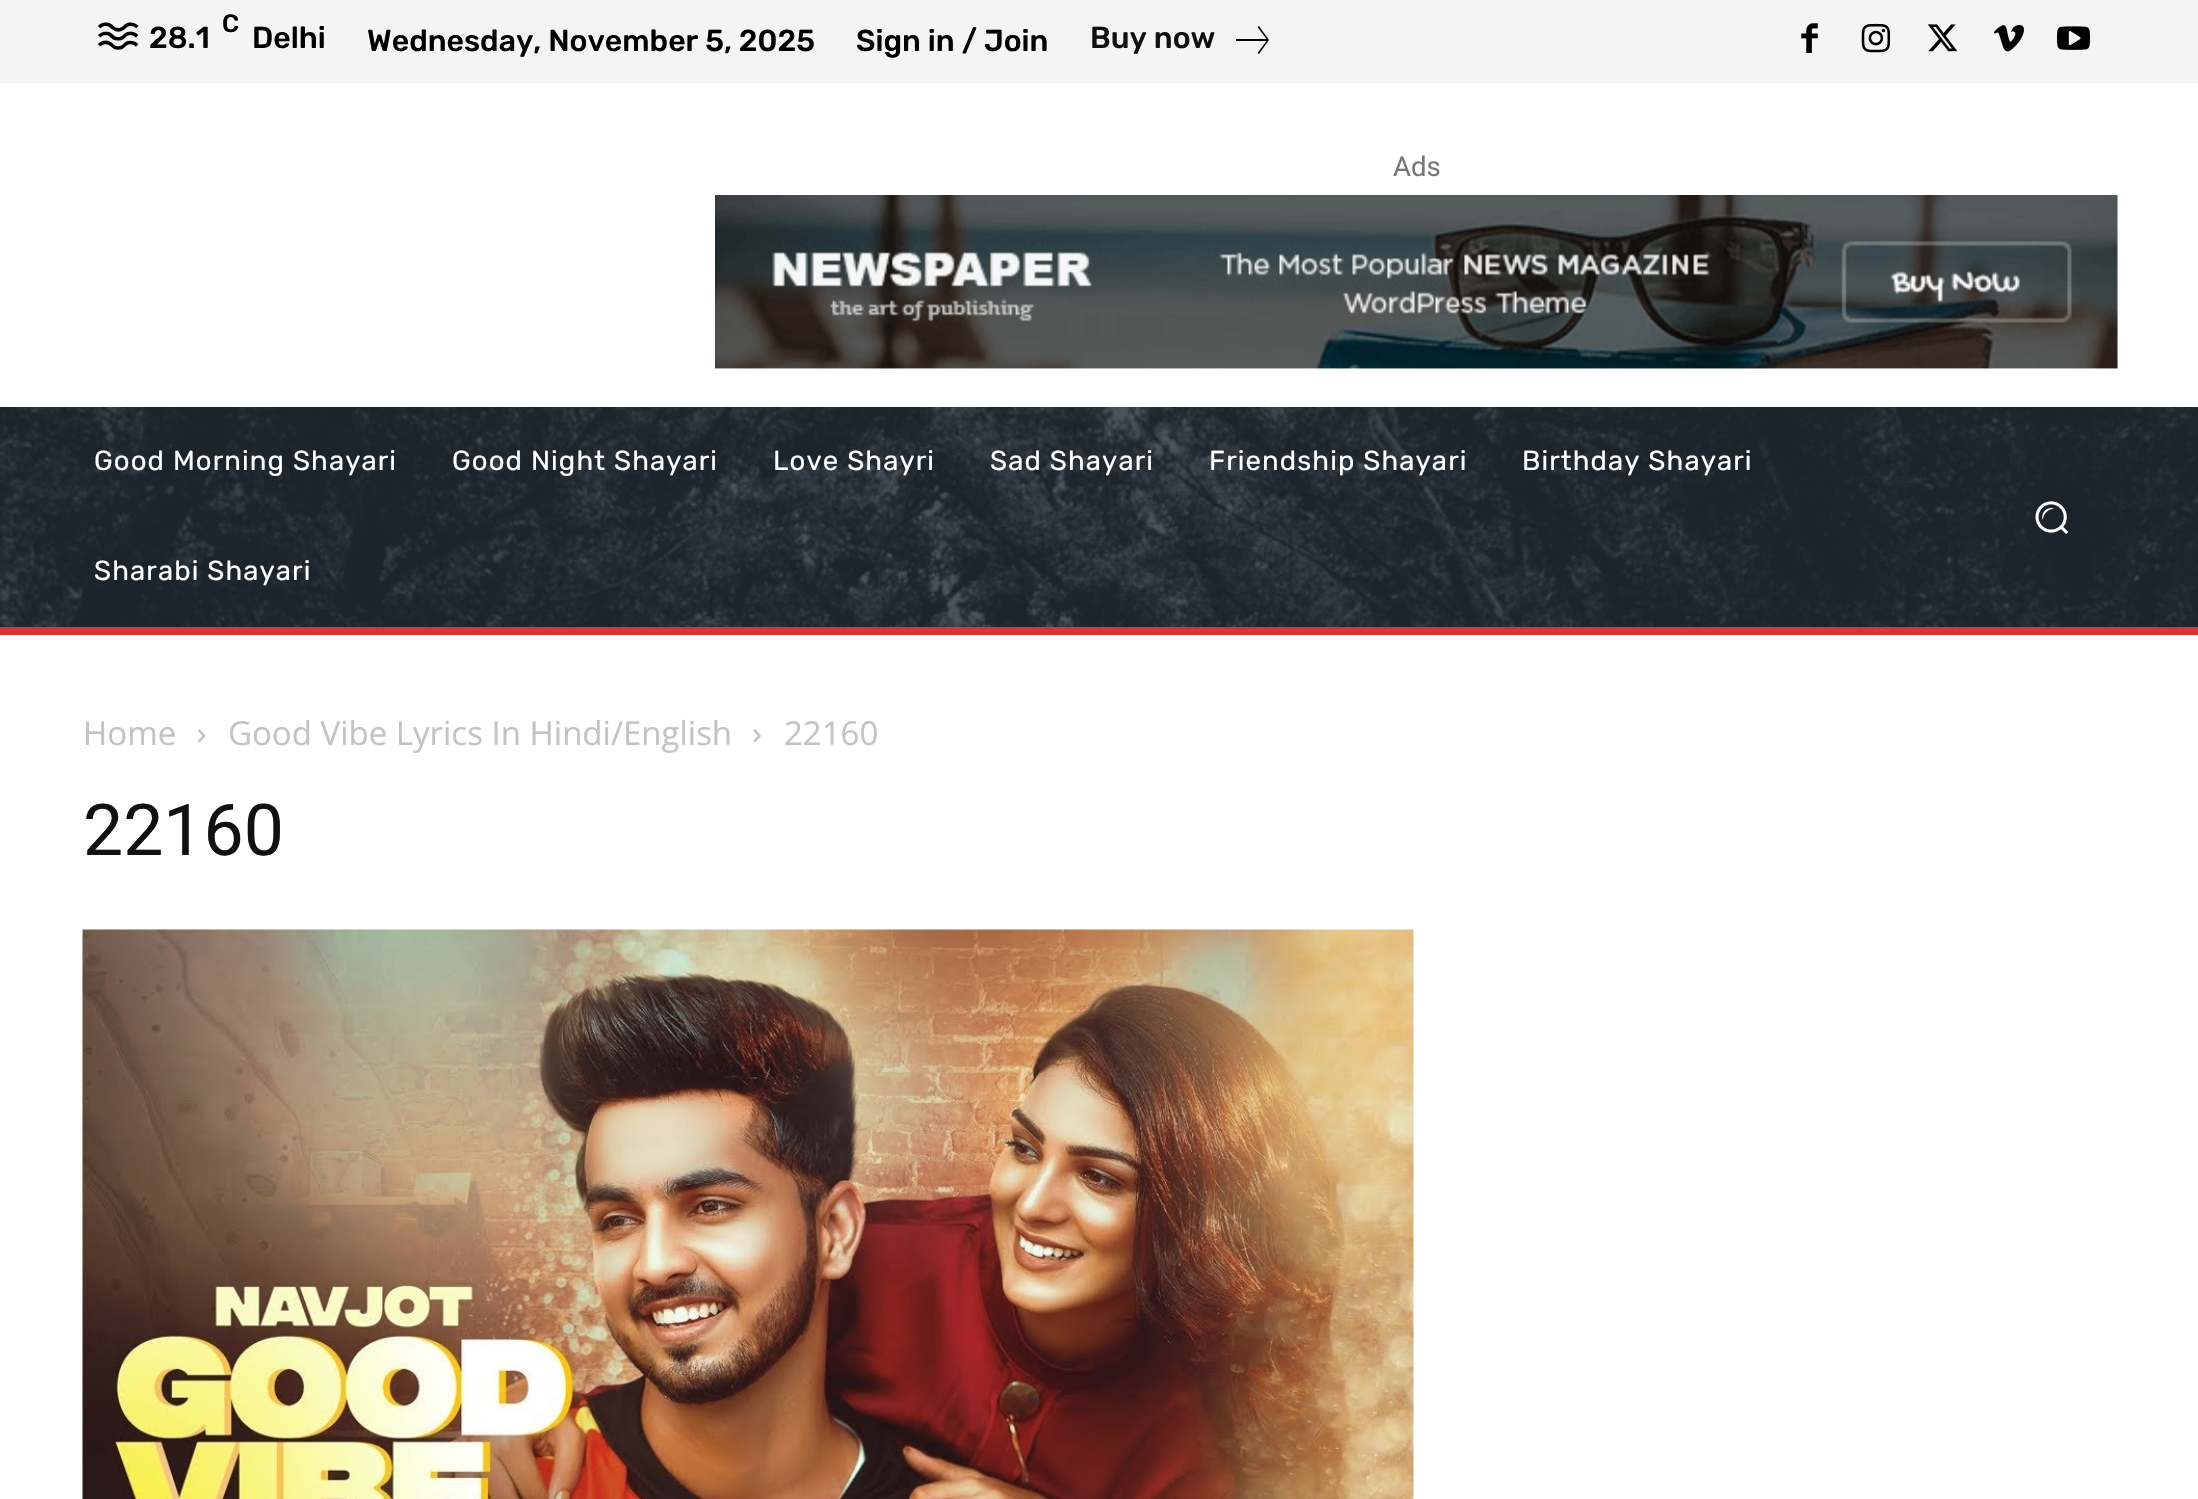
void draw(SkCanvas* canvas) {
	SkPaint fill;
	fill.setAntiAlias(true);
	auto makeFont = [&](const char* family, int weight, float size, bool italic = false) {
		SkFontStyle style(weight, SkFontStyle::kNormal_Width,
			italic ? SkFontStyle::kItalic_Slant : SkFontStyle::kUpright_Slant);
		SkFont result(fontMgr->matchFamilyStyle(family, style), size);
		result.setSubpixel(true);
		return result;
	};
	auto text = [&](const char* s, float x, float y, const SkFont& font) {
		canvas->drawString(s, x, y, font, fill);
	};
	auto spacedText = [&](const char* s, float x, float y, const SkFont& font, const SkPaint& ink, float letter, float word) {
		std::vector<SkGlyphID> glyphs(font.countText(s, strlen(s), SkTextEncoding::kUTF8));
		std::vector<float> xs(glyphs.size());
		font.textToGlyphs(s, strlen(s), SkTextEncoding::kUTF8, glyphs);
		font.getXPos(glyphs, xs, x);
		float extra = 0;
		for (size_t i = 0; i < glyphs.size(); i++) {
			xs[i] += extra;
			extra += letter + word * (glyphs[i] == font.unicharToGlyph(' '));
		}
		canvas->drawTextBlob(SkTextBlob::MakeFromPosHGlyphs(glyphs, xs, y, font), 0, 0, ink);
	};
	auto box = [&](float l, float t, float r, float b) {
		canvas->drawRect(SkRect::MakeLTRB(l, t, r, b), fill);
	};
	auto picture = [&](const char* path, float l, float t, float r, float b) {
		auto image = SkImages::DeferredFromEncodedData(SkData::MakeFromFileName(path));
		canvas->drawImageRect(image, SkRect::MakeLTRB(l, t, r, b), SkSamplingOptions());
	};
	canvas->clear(0xFFFFFFFF);
	fill.setColor(0xFFF4F4F4);
	box(0, 0, 2198, 83);
	picture("image0.png", 97, 22, 139, 50);
	fill.setColor(0xFF000000);
	canvas->drawPath(SkPathBuilder().moveTo(1257.5f, 53).lineTo(1259, 54).lineTo(1269, 40).lineTo(1259, 26).lineTo(1257.5f, 27).lineTo(1266.5f, 39).lineTo(1236, 39).lineTo(1236, 41).lineTo(1266.5f, 41).close().detach(), fill);
	picture("image1.png", 1801, 23, 1818, 53);
	picture("image2.png", 1861, 23, 1891, 53);
	picture("image3.png", 1927, 24, 1958, 52);
	picture("image4.png", 1993, 25, 2024, 52);
	picture("image5.png", 2057, 26, 2090, 50);
	picture("image6.png", 715, 195, 2118, 369);
	fill.setColor(0xFF232D35);
	box(0, 407, 2198, 627);
	picture("image7.png", 0, 407, 2198, 627);
	picture("image8.png", 2035, 501, 2069, 534);
	fill.setColor(0xFFDD3333);
	box(0, 627, 2198, 635);
	picture("image9.png", 198, 729, 206, 743);
	picture("image10.png", 753, 729, 761, 743);
	picture("image11.png", 82, 929, 1414, 1499);
	auto font1 = makeFont("Rubik", 500, 25);
	fill.setColor(0xFF000000);
	text("C", 222, 32, font1);
	auto font2 = makeFont("Rubik", 500, 30.25f);
	text("28.1", 149, 48, font2);
	text("Delhi", 252, 48, font2);
	text("Wednesday, November 5, 2025", 367, 51, font2);
	text("Sign in / Join", 856, 51, font2);
	fill.setColor(0xFF111111);
	text("Buy now", 1090, 48, font2);
	auto font3 = makeFont("Roboto", 400, 27.5f);
	fill.setColor(0xFF767676);
	text("Ads", 1393, 176, font3);
	auto font4 = makeFont("Rubik", 400, 27.5f);
	fill.setColor(0xFFFFFFFF);
	spacedText("Good Morning Shayari", 94, 470, font4, fill, 1.1f, 0);
	spacedText("Good Night Shayari", 452, 470, font4, fill, 1.1f, 0);
	spacedText("Love Shayri", 773, 470, font4, fill, 1.1f, 0);
	spacedText("Sad Shayari", 990, 470, font4, fill, 1.1f, 0);
	spacedText("Friendship Shayari", 1209, 470, font4, fill, 1.1f, 0);
	spacedText("Birthday Shayari", 1522, 470, font4, fill, 1.1f, 0);
	spacedText("Sharabi Shayari", 94, 580, font4, fill, 1.1f, 0);
	auto font5 = makeFont("Open Sans", 400, 33);
	fill.setColor(0xFFC3C3C3);
	text("Home", 83, 745, font5);
	text("Good Vibe Lyrics In Hindi/English", 228, 745, font5);
	text("22160", 784, 745, font5);
	auto font6 = makeFont("Roboto", 400, 71.5f);
	fill.setColor(0xFF111111);
	text("22160", 83, 855, font6);
}
